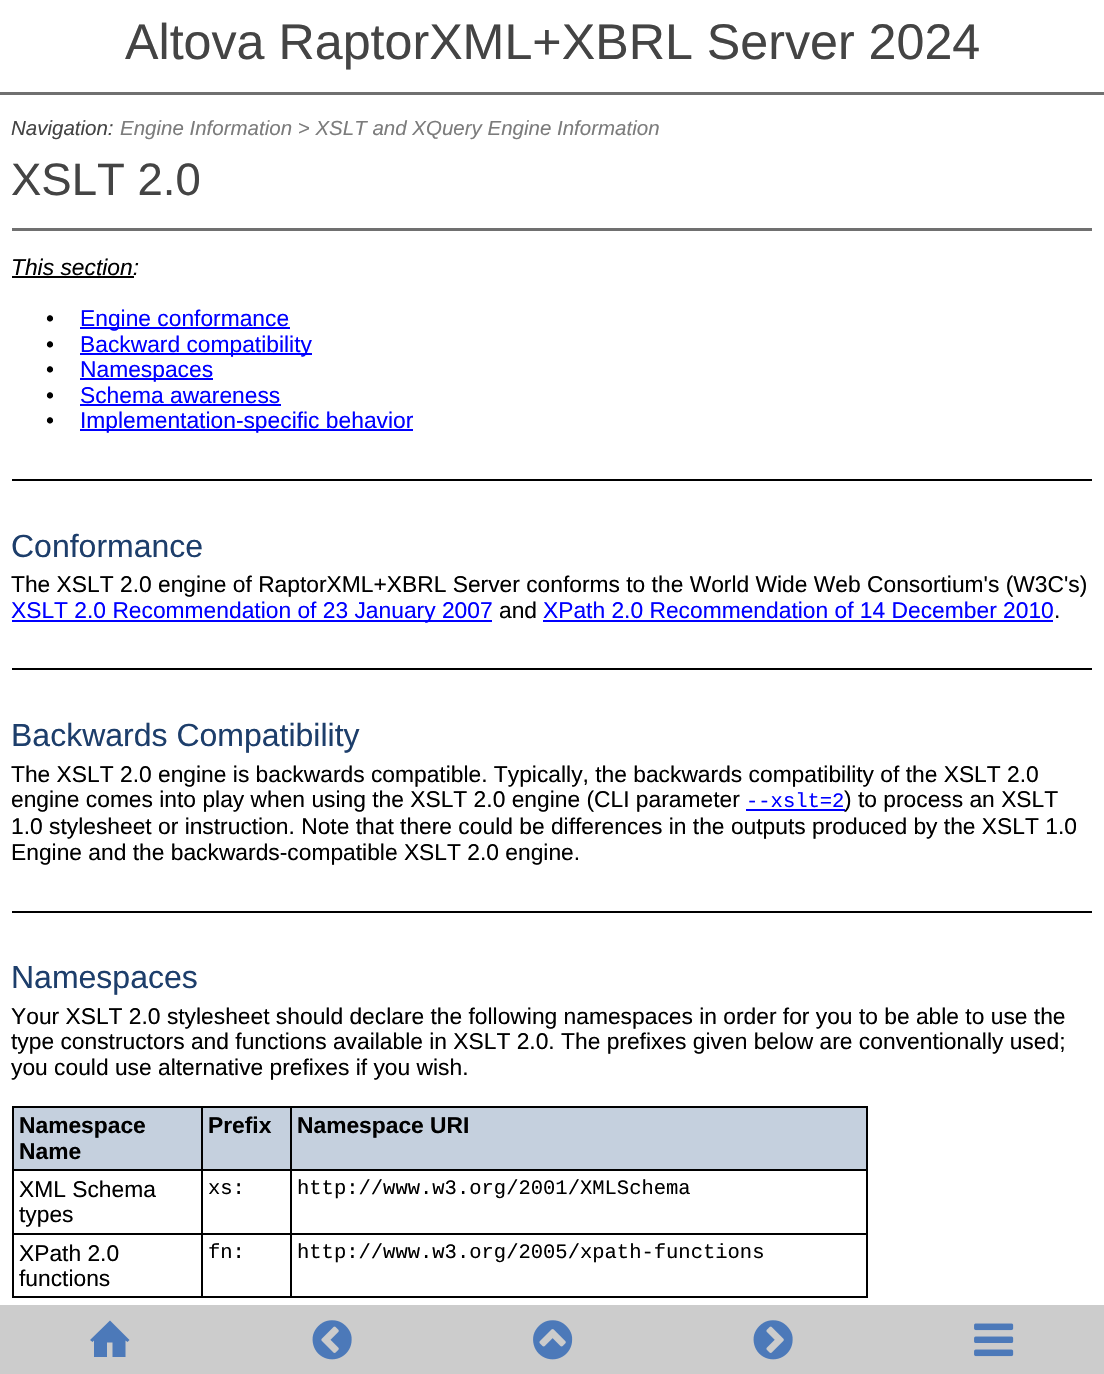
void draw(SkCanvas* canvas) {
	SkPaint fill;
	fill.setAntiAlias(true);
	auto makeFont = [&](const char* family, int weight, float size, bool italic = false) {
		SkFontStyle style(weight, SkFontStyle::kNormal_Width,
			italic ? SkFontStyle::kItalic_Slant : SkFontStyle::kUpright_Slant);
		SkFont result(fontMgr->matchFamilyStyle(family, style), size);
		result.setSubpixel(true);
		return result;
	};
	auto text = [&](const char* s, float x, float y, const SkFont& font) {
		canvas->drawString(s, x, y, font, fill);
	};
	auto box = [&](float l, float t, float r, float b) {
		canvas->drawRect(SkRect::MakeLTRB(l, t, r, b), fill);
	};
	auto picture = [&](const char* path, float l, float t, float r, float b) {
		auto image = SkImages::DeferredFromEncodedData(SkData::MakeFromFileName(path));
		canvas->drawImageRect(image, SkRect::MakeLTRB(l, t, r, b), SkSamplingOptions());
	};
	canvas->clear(0xFFFFFFFF);
	fill.setColor(0xFF707070);
	box(0, 92, 1104, 95);
	box(12, 228, 1092, 231);
	fill.setColor(0xFF000000);
	box(12, 276, 134, 278);
	fill.setColor(0xFF0000FF);
	box(80, 327, 290, 329);
	box(80, 353, 312, 355);
	box(80, 378, 213, 380);
	box(80, 404, 281, 406);
	box(80, 429, 413, 431);
	fill.setColor(0xFF000000);
	box(12, 479, 1092, 481);
	fill.setColor(0xFF0000FF);
	box(12, 620, 492, 622);
	box(543, 620, 1053, 622);
	fill.setColor(0xFF000000);
	box(12, 668, 1092, 670);
	fill.setColor(0xFF0000FF);
	box(746, 809, 845, 811);
	fill.setColor(0xFF000000);
	box(12, 911, 1092, 913);
	fill.setColor(0xFFC5D0DE);
	box(14, 1108, 201, 1169);
	fill.setColor(0xFF000000);
	box(290, 1106, 867, 1108);
	box(290, 1169, 867, 1171);
	box(290, 1233, 867, 1235);
	box(866, 1233, 868, 1298);
	box(290, 1296, 867, 1298);
	box(290, 1233, 292, 1298);
	box(201, 1233, 291, 1235);
	box(290, 1169, 292, 1235);
	box(201, 1169, 291, 1171);
	box(290, 1106, 292, 1170);
	box(201, 1106, 291, 1108);
	box(201, 1296, 291, 1298);
	box(201, 1233, 203, 1298);
	box(12, 1233, 203, 1235);
	box(201, 1169, 203, 1235);
	box(12, 1169, 203, 1171);
	box(201, 1106, 203, 1170);
	box(12, 1106, 203, 1108);
	box(12, 1296, 203, 1298);
	box(12, 1233, 14, 1298);
	box(12, 1169, 14, 1235);
	box(12, 1106, 14, 1170);
	fill.setColor(0xFFC5D0DE);
	box(203, 1108, 290, 1169);
	box(292, 1108, 866, 1169);
	fill.setColor(0xFF000000);
	box(866, 1169, 868, 1235);
	box(866, 1106, 868, 1170);
	fill.setColor(0xFFCCCCCC);
	box(0, 1305, 1104, 1374);
	fill.setColor(0xFF4C79B9);
	canvas->drawPath(SkPathBuilder().moveTo(110, 1320.5f).lineTo(90, 1340).lineTo(92.5f, 1342).lineTo(94, 1340.5f).lineTo(94, 1357).lineTo(107, 1357).lineTo(107, 1342.5f).lineTo(112.5f, 1342.5f).lineTo(112.5f, 1357).lineTo(125.5f, 1357).lineTo(125.5f, 1340.5f).lineTo(127.5f, 1342).lineTo(129.5f, 1340).lineTo(111, 1321.5f).close().detach(), fill);
	picture("image0.png", 312, 1320, 352, 1360);
	picture("image1.png", 533, 1320, 573, 1360);
	picture("image2.png", 753, 1320, 793, 1360);
	picture("image3.png", 974, 1323, 1014, 1357);
	auto font1 = makeFont("Liberation Sans", 400, 50.2f);
	fill.setColor(0xFF444444);
	text("Altova RaptorXML+XBRL Server 2024", 125, 59, font1);
	auto font2 = makeFont("Liberation Sans", 400, 20.5f, true);
	text("Navigation:", 11, 135, font2);
	fill.setColor(0xFF7C7C7C);
	text("Engine Information > XSLT and XQuery Engine Information", 120, 135, font2);
	auto font3 = makeFont("Liberation Sans", 400, 45.5f);
	fill.setColor(0xFF444444);
	text("XSLT 2.0", 11, 195, font3);
	auto font4 = makeFont("Liberation Sans", 400, 22.8f, true);
	fill.setColor(0xFF000000);
	text("This section:", 11, 275, font4);
	auto font5 = makeFont("Liberation Sans", 400, 22.8f);
	text("•", 46, 326, font5);
	fill.setColor(0xFF0000FF);
	text("Engine conformance", 80, 326, font5);
	fill.setColor(0xFF000000);
	text("•", 46, 352, font5);
	fill.setColor(0xFF0000FF);
	text("Backward compatibility", 80, 352, font5);
	fill.setColor(0xFF000000);
	text("•", 46, 377, font5);
	fill.setColor(0xFF0000FF);
	text("Namespaces", 80, 377, font5);
	fill.setColor(0xFF000000);
	text("•", 46, 403, font5);
	fill.setColor(0xFF0000FF);
	text("Schema awareness", 80, 403, font5);
	fill.setColor(0xFF000000);
	text("•", 46, 428, font5);
	fill.setColor(0xFF0000FF);
	text("Implementation-specific behavior", 80, 428, font5);
	auto font6 = makeFont("Liberation Sans", 400, 32);
	fill.setColor(0xFF1D3E6B);
	text("Conformance", 11, 557, font6);
	fill.setColor(0xFF000000);
	text("The XSLT 2.0 engine of RaptorXML+XBRL Server conforms to the World Wide Web Consortium's (W3C's)", 11, 592, font5);
	fill.setColor(0xFF0000FF);
	text("XSLT 2.0 Recommendation of 23 January 2007", 11, 618, font5);
	fill.setColor(0xFF000000);
	text("and", 499, 618, font5);
	fill.setColor(0xFF0000FF);
	text("XPath 2.0 Recommendation of 14 December 2010", 543, 618, font5);
	fill.setColor(0xFF000000);
	text(".", 1054, 618, font5);
	fill.setColor(0xFF1D3E6B);
	text("Backwards Compatibility", 11, 746, font6);
	fill.setColor(0xFF000000);
	text("The XSLT 2.0 engine is backwards compatible. Typically, the backwards compatibility of the XSLT 2.0", 11, 782, font5);
	text("engine comes into play when using the XSLT 2.0 engine (CLI parameter", 11, 807, font5);
	auto font7 = makeFont("Liberation Mono", 400, 20.5f);
	fill.setColor(0xFF0000FF);
	text("--xslt=2", 746, 807, font7);
	fill.setColor(0xFF000000);
	text(") to process an XSLT", 844, 807, font5);
	text("1.0 stylesheet or instruction. Note that there could be differences in the outputs produced by the XSLT 1.0", 11, 834, font5);
	text("Engine and the backwards-compatible XSLT 2.0 engine.", 11, 860, font5);
	fill.setColor(0xFF1D3E6B);
	text("Namespaces", 11, 988, font6);
	fill.setColor(0xFF000000);
	text("Your XSLT 2.0 stylesheet should declare the following namespaces in order for you to be able to use the", 11, 1024, font5);
	text("type constructors and functions available in XSLT 2.0. The prefixes given below are conventionally used;", 11, 1049, font5);
	text("you could use alternative prefixes if you wish.", 11, 1075, font5);
	auto font8 = makeFont("Liberation Sans", 700, 22.8f);
	text("Namespace", 19, 1133, font8);
	text("Name", 19, 1159, font8);
	text("Prefix", 208, 1133, font8);
	text("Namespace URI", 297, 1133, font8);
	text("XML Schema", 19, 1197, font5);
	text("types", 19, 1222, font5);
	text("xs:", 208, 1194, font7);
	text("http://www.w3.org/2001/XMLSchema", 297, 1194, font7);
	text("XPath 2.0", 19, 1261, font5);
	text("functions", 19, 1286, font5);
	text("fn:", 208, 1258, font7);
	text("http://www.w3.org/2005/xpath-functions", 297, 1258, font7);
}
